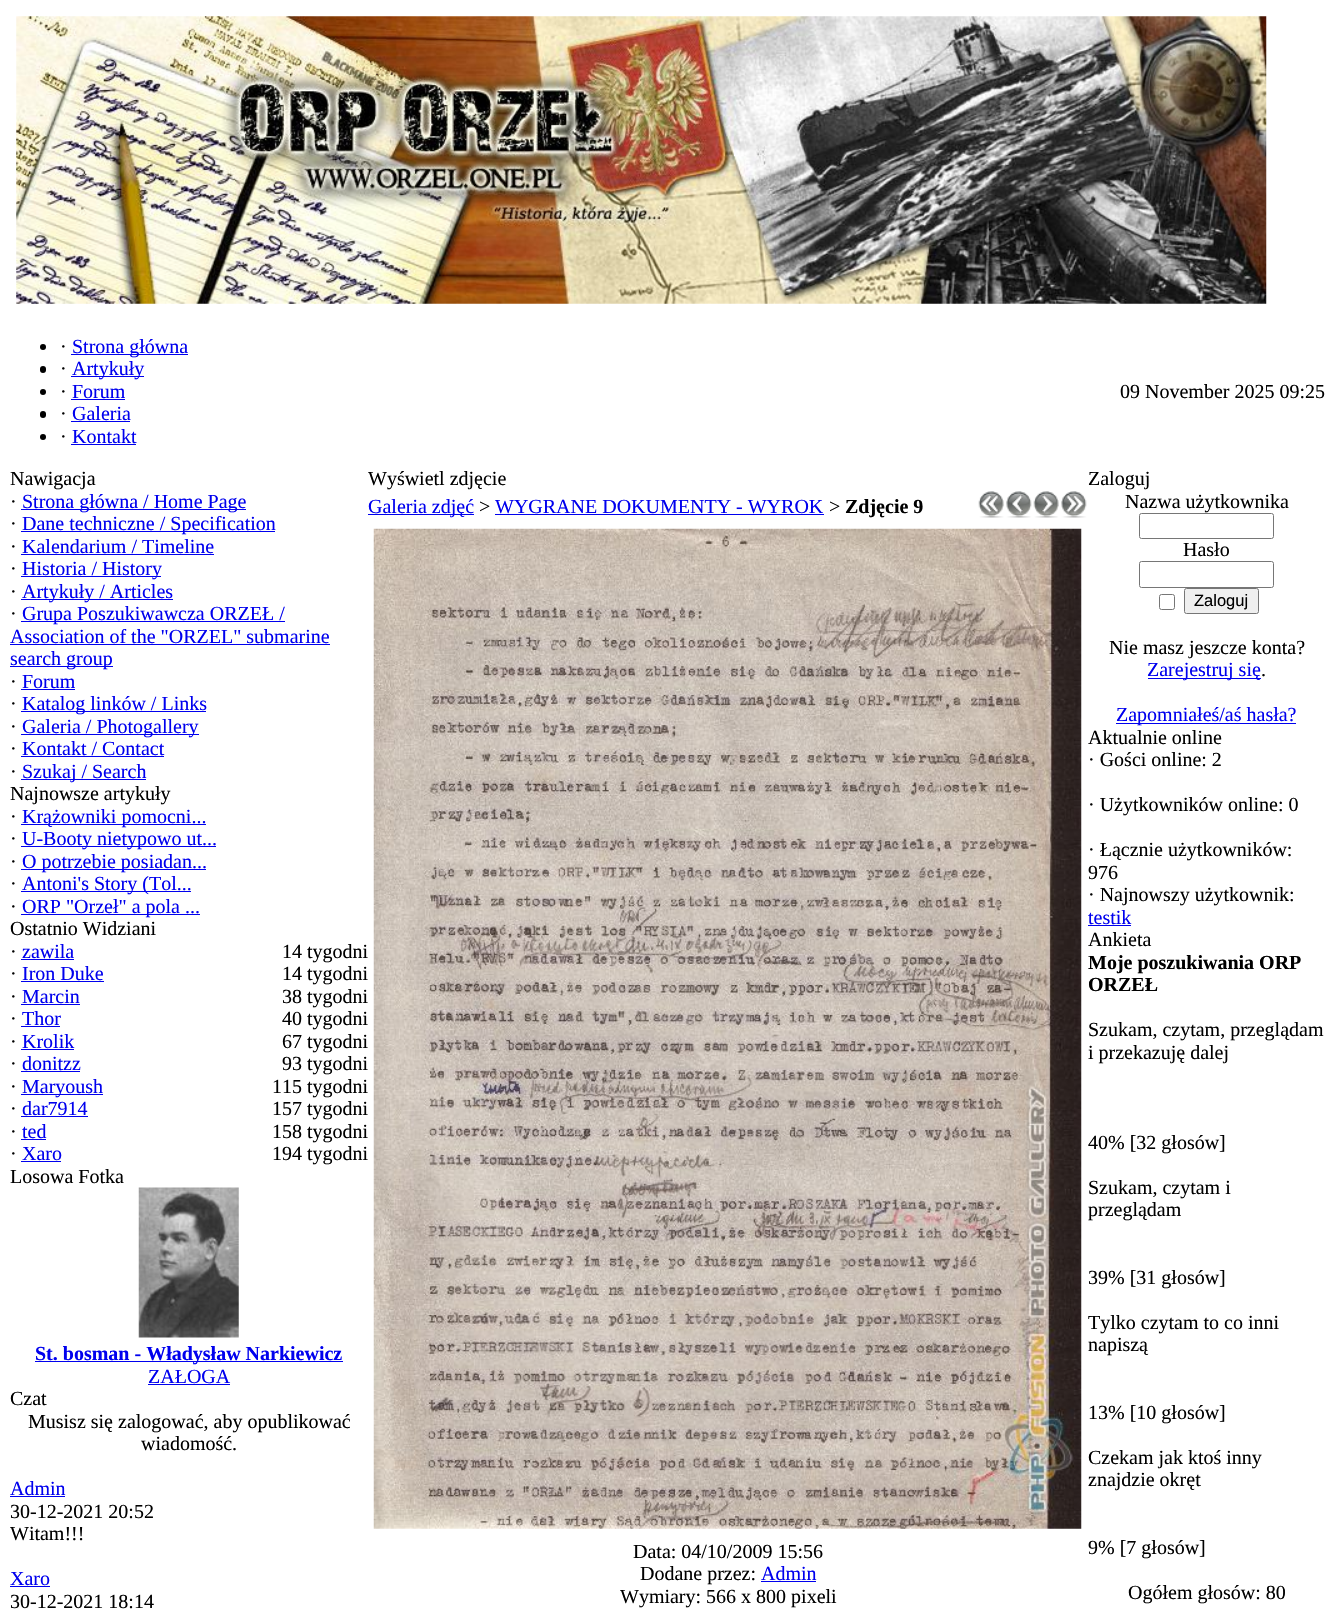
void draw(SkCanvas* canvas) {
	SkPaint fill;
	fill.setAntiAlias(true);
	auto makeFont = [&](const char* family, int weight, float size, bool italic = false) {
		SkFontStyle style(weight, SkFontStyle::kNormal_Width,
			italic ? SkFontStyle::kItalic_Slant : SkFontStyle::kUpright_Slant);
		SkFont result(fontMgr->matchFamilyStyle(family, style), size);
		result.setSubpixel(true);
		return result;
	};
	auto text = [&](const char* s, float x, float y, const SkFont& font) {
		canvas->drawString(s, x, y, font, fill);
	};
	auto box = [&](float l, float t, float r, float b) {
		canvas->drawRect(SkRect::MakeLTRB(l, t, r, b), fill);
	};
	auto roundBox = [&](float l, float t, float r, float b, float radius) {
		canvas->drawRoundRect(SkRect::MakeLTRB(l, t, r, b), radius, radius, fill);
	};
	auto picture = [&](const char* path, float l, float t, float r, float b) {
		auto image = SkImages::DeferredFromEncodedData(SkData::MakeFromFileName(path));
		canvas->drawImageRect(image, SkRect::MakeLTRB(l, t, r, b), SkSamplingOptions());
	};
	canvas->clear(0xFFFFFFFF);
	picture("image0.png", 16, 16, 1267, 304);
	fill.setColor(0xFF000000);
	canvas->drawCircle(43, 347, 3, fill);
	fill.setColor(0xFF0000EE);
	box(71, 354, 188, 355);
	fill.setColor(0xFF000000);
	roundBox(40, 366, 46, 373, 3);
	fill.setColor(0xFF0000EE);
	box(71, 376, 144, 377);
	fill.setColor(0xFF000000);
	canvas->drawCircle(43, 392, 3, fill);
	fill.setColor(0xFF0000EE);
	box(71, 399, 125, 400);
	fill.setColor(0xFF000000);
	roundBox(40, 411, 46, 418, 3);
	fill.setColor(0xFF0000EE);
	box(71, 421, 130, 422);
	fill.setColor(0xFF000000);
	canvas->drawCircle(43, 437, 3, fill);
	fill.setColor(0xFF0000EE);
	box(71, 444, 136, 445);
	box(21, 509, 246, 510);
	box(21, 531, 275, 532);
	box(21, 554, 214, 555);
	box(21, 576, 161, 577);
	box(21, 599, 173, 600);
	box(21, 621, 285, 622);
	box(10, 644, 330, 645);
	box(10, 666, 113, 667);
	box(21, 689, 75, 690);
	box(21, 711, 206, 712);
	box(21, 734, 199, 735);
	box(21, 756, 164, 757);
	box(21, 779, 146, 780);
	box(21, 824, 206, 825);
	box(21, 846, 216, 847);
	box(21, 869, 206, 870);
	box(21, 891, 191, 892);
	box(21, 914, 200, 915);
	box(21, 959, 74, 960);
	box(21, 981, 104, 982);
	box(21, 1004, 80, 1005);
	box(21, 1026, 60, 1027);
	box(21, 1049, 74, 1050);
	box(21, 1071, 80, 1072);
	box(21, 1094, 103, 1095);
	box(21, 1116, 88, 1117);
	box(21, 1139, 46, 1140);
	box(21, 1161, 61, 1162);
	picture("image1.png", 138, 1187, 239, 1338);
	box(35, 1361, 343, 1362);
	box(148, 1384, 230, 1385);
	box(10, 1496, 65, 1497);
	box(10, 1586, 50, 1587);
	box(368, 514, 474, 515);
	box(495, 514, 824, 515);
	picture("image2.png", 978, 491, 1004, 518);
	picture("image3.png", 1006, 491, 1032, 518);
	picture("image4.png", 1033, 491, 1059, 518);
	picture("image5.png", 1061, 491, 1087, 518);
	picture("image6.png", 373, 528, 1082, 1529);
	box(761, 1581, 816, 1582);
	fill.setStyle(SkPaint::kStroke_Style);
	fill.setStrokeWidth(1);
	fill.setColor(0xFF767676);
	canvas->drawRoundRect(SkRect::MakeLTRB(1139.5f, 513.5f, 1273.5f, 538.5f), 2, 2, fill);
	canvas->drawRoundRect(SkRect::MakeLTRB(1139.5f, 561.5f, 1273.5f, 587.5f), 2, 2, fill);
	canvas->drawRoundRect(SkRect::MakeLTRB(1159.5f, 594.5f, 1174.5f, 609.5f), 2, 2, fill);
	fill.setStyle(SkPaint::kFill_Style);
	fill.setColor(0xFFEFEFEF);
	canvas->drawRoundRect(SkRect::MakeLTRB(1184.5f, 588.5f, 1258.5f, 613.5f), 2, 2, fill);
	fill.setStyle(SkPaint::kStroke_Style);
	fill.setColor(0xFF767676);
	canvas->drawRoundRect(SkRect::MakeLTRB(1184.5f, 588.5f, 1258.5f, 613.5f), 2, 2, fill);
	fill.setStyle(SkPaint::kFill_Style);
	fill.setColor(0xFF0000EE);
	box(1148, 678, 1261, 679);
	box(1116, 723, 1296, 724);
	box(1088, 925, 1131, 926);
	auto font1 = makeFont("Liberation Serif", 400, 20);
	fill.setColor(0xFF000000);
	text("·", 60, 353, font1);
	fill.setColor(0xFF0000EE);
	text("Strona główna", 72, 353, font1);
	fill.setColor(0xFF000000);
	text("·", 60, 375, font1);
	fill.setColor(0xFF0000EE);
	text("Artykuły", 72, 375, font1);
	fill.setColor(0xFF000000);
	text("·", 60, 398, font1);
	fill.setColor(0xFF0000EE);
	text("Forum", 72, 398, font1);
	fill.setColor(0xFF000000);
	text("·", 60, 420, font1);
	fill.setColor(0xFF0000EE);
	text("Galeria", 72, 420, font1);
	fill.setColor(0xFF000000);
	text("·", 60, 443, font1);
	fill.setColor(0xFF0000EE);
	text("Kontakt", 72, 443, font1);
	fill.setColor(0xFF000000);
	text("09 November 2025 09:25", 1120, 398, font1);
	text("Nawigacja", 10, 485, font1);
	text("·", 10, 508, font1);
	fill.setColor(0xFF0000EE);
	text("Strona główna / Home Page", 22, 508, font1);
	fill.setColor(0xFF000000);
	text("·", 10, 530, font1);
	fill.setColor(0xFF0000EE);
	text("Dane techniczne / Specification", 22, 530, font1);
	fill.setColor(0xFF000000);
	text("·", 10, 553, font1);
	fill.setColor(0xFF0000EE);
	text("Kalendarium / Timeline", 22, 553, font1);
	fill.setColor(0xFF000000);
	text("·", 10, 575, font1);
	fill.setColor(0xFF0000EE);
	text("Historia / History", 22, 575, font1);
	fill.setColor(0xFF000000);
	text("·", 10, 598, font1);
	fill.setColor(0xFF0000EE);
	text("Artykuły / Articles", 22, 598, font1);
	fill.setColor(0xFF000000);
	text("·", 10, 620, font1);
	fill.setColor(0xFF0000EE);
	text("Grupa Poszukiwawcza ORZEŁ /", 22, 620, font1);
	text("Association of the \"ORZEL\" submarine", 10, 643, font1);
	text("search group", 10, 665, font1);
	fill.setColor(0xFF000000);
	text("·", 10, 688, font1);
	fill.setColor(0xFF0000EE);
	text("Forum", 22, 688, font1);
	fill.setColor(0xFF000000);
	text("·", 10, 710, font1);
	fill.setColor(0xFF0000EE);
	text("Katalog linków / Links", 22, 710, font1);
	fill.setColor(0xFF000000);
	text("·", 10, 733, font1);
	fill.setColor(0xFF0000EE);
	text("Galeria / Photogallery", 22, 733, font1);
	fill.setColor(0xFF000000);
	text("·", 10, 755, font1);
	fill.setColor(0xFF0000EE);
	text("Kontakt / Contact", 22, 755, font1);
	fill.setColor(0xFF000000);
	text("·", 10, 778, font1);
	fill.setColor(0xFF0000EE);
	text("Szukaj / Search", 22, 778, font1);
	fill.setColor(0xFF000000);
	text("Najnowsze artykuły", 10, 800, font1);
	text("·", 10, 823, font1);
	fill.setColor(0xFF0000EE);
	text("Krążowniki pomocni...", 22, 823, font1);
	fill.setColor(0xFF000000);
	text("·", 10, 845, font1);
	fill.setColor(0xFF0000EE);
	text("U-Booty nietypowo ut...", 22, 845, font1);
	fill.setColor(0xFF000000);
	text("·", 10, 868, font1);
	fill.setColor(0xFF0000EE);
	text("O potrzebie posiadan...", 22, 868, font1);
	fill.setColor(0xFF000000);
	text("·", 10, 890, font1);
	fill.setColor(0xFF0000EE);
	text("Antoni's Story (Tol...", 22, 890, font1);
	fill.setColor(0xFF000000);
	text("·", 10, 913, font1);
	fill.setColor(0xFF0000EE);
	text("ORP \"Orzeł\" a pola ...", 22, 913, font1);
	fill.setColor(0xFF000000);
	text("Ostatnio Widziani", 10, 935, font1);
	text("·", 10, 958, font1);
	fill.setColor(0xFF0000EE);
	text("zawila", 22, 958, font1);
	fill.setColor(0xFF000000);
	text("14 tygodni", 282, 958, font1);
	text("·", 10, 980, font1);
	fill.setColor(0xFF0000EE);
	text("Iron Duke", 22, 980, font1);
	fill.setColor(0xFF000000);
	text("14 tygodni", 282, 980, font1);
	text("·", 10, 1003, font1);
	fill.setColor(0xFF0000EE);
	text("Marcin", 22, 1003, font1);
	fill.setColor(0xFF000000);
	text("38 tygodni", 282, 1003, font1);
	text("·", 10, 1025, font1);
	fill.setColor(0xFF0000EE);
	text("Thor", 22, 1025, font1);
	fill.setColor(0xFF000000);
	text("40 tygodni", 282, 1025, font1);
	text("·", 10, 1048, font1);
	fill.setColor(0xFF0000EE);
	text("Krolik", 22, 1048, font1);
	fill.setColor(0xFF000000);
	text("67 tygodni", 282, 1048, font1);
	text("·", 10, 1070, font1);
	fill.setColor(0xFF0000EE);
	text("donitzz", 22, 1070, font1);
	fill.setColor(0xFF000000);
	text("93 tygodni", 282, 1070, font1);
	text("·", 10, 1093, font1);
	fill.setColor(0xFF0000EE);
	text("Maryoush", 22, 1093, font1);
	fill.setColor(0xFF000000);
	text("115 tygodni", 272, 1093, font1);
	text("·", 10, 1115, font1);
	fill.setColor(0xFF0000EE);
	text("dar7914", 22, 1115, font1);
	fill.setColor(0xFF000000);
	text("157 tygodni", 272, 1115, font1);
	text("·", 10, 1138, font1);
	fill.setColor(0xFF0000EE);
	text("ted", 22, 1138, font1);
	fill.setColor(0xFF000000);
	text("158 tygodni", 272, 1138, font1);
	text("·", 10, 1160, font1);
	fill.setColor(0xFF0000EE);
	text("Xaro", 22, 1160, font1);
	fill.setColor(0xFF000000);
	text("194 tygodni", 272, 1160, font1);
	text("Losowa Fotka", 10, 1183, font1);
	auto font2 = makeFont("Liberation Serif", 700, 20);
	fill.setColor(0xFF0000EE);
	text("St. bosman - Władysław Narkiewicz", 35, 1360, font2);
	text("ZAŁOGA", 148, 1383, font1);
	fill.setColor(0xFF000000);
	text("Czat", 10, 1405, font1);
	text("Musisz się zalogować, aby opublikować", 28, 1428, font1);
	text("wiadomość.", 141, 1450, font1);
	fill.setColor(0xFF0000EE);
	text("Admin", 10, 1495, font1);
	fill.setColor(0xFF000000);
	text("30-12-2021 20:52", 10, 1518, font1);
	text("Witam!!!", 10, 1540, font1);
	fill.setColor(0xFF0000EE);
	text("Xaro", 10, 1585, font1);
	fill.setColor(0xFF000000);
	text("30-12-2021 18:14", 10, 1608, font1);
	text("Wyświetl zdjęcie", 368, 485, font1);
	fill.setColor(0xFF0000EE);
	text("Galeria zdjęć", 368, 513, font1);
	fill.setColor(0xFF000000);
	text(">", 479, 513, font1);
	fill.setColor(0xFF0000EE);
	text("WYGRANE DOKUMENTY - WYROK", 495, 513, font1);
	fill.setColor(0xFF000000);
	text(">", 829, 513, font1);
	text("Zdjęcie 9", 845, 513, font2);
	text("Data: 04/10/2009 15:56", 633, 1558, font1);
	text("Dodane przez:", 640, 1580, font1);
	fill.setColor(0xFF0000EE);
	text("Admin", 761, 1580, font1);
	fill.setColor(0xFF000000);
	text("Wymiary: 566 x 800 pixeli", 620, 1603, font1);
	text("Zaloguj", 1088, 485, font1);
	text("Nazwa użytkownika", 1125, 508, font1);
	text("Hasło", 1183, 556, font1);
	auto font3 = makeFont("Liberation Sans", 400, 16.5f);
	text("Zaloguj", 1194, 606, font3);
	text("Nie masz jeszcze konta?", 1109, 654, font1);
	fill.setColor(0xFF0000EE);
	text("Zarejestruj się", 1147, 676, font1);
	fill.setColor(0xFF000000);
	text(".", 1261, 676, font1);
	fill.setColor(0xFF0000EE);
	text("Zapomniałeś/aś hasła?", 1116, 721, font1);
	fill.setColor(0xFF000000);
	text("Aktualnie online", 1088, 744, font1);
	text("· Gości online: 2", 1088, 766, font1);
	text("· Użytkowników online: 0", 1088, 811, font1);
	text("· Łącznie użytkowników:", 1088, 856, font1);
	text("976", 1088, 879, font1);
	text("· Najnowszy użytkownik:", 1088, 901, font1);
	fill.setColor(0xFF0000EE);
	text("testik", 1088, 924, font1);
	fill.setColor(0xFF000000);
	text("Ankieta", 1088, 946, font1);
	text("Moje poszukiwania ORP", 1088, 969, font2);
	text("ORZEŁ", 1088, 991, font2);
	text("Szukam, czytam, przeglądam", 1088, 1036, font1);
	text("i przekazuję dalej", 1088, 1059, font1);
	text("40% [32 głosów]", 1088, 1149, font1);
	text("Szukam, czytam i", 1088, 1194, font1);
	text("przeglądam", 1088, 1216, font1);
	text("39% [31 głosów]", 1088, 1284, font1);
	text("Tylko czytam to co inni", 1088, 1329, font1);
	text("napiszą", 1088, 1351, font1);
	text("13% [10 głosów]", 1088, 1419, font1);
	text("Czekam jak ktoś inny", 1088, 1464, font1);
	text("znajdzie okręt", 1088, 1486, font1);
	text("9% [7 głosów]", 1088, 1554, font1);
	text("Ogółem głosów: 80", 1128, 1599, font1);
}
